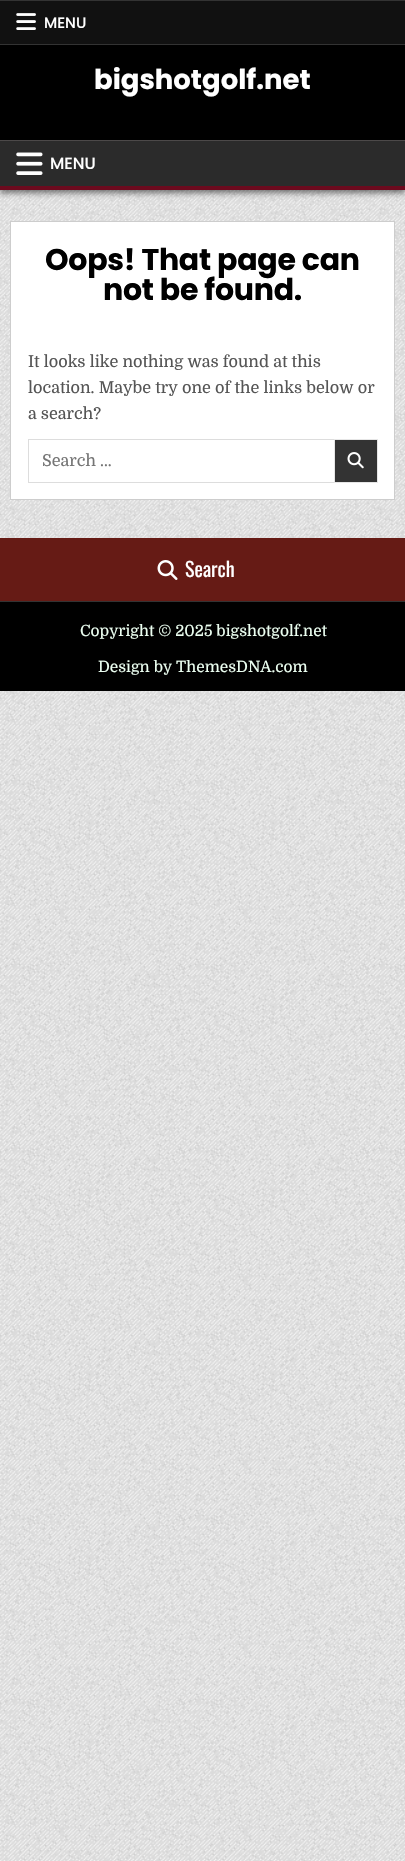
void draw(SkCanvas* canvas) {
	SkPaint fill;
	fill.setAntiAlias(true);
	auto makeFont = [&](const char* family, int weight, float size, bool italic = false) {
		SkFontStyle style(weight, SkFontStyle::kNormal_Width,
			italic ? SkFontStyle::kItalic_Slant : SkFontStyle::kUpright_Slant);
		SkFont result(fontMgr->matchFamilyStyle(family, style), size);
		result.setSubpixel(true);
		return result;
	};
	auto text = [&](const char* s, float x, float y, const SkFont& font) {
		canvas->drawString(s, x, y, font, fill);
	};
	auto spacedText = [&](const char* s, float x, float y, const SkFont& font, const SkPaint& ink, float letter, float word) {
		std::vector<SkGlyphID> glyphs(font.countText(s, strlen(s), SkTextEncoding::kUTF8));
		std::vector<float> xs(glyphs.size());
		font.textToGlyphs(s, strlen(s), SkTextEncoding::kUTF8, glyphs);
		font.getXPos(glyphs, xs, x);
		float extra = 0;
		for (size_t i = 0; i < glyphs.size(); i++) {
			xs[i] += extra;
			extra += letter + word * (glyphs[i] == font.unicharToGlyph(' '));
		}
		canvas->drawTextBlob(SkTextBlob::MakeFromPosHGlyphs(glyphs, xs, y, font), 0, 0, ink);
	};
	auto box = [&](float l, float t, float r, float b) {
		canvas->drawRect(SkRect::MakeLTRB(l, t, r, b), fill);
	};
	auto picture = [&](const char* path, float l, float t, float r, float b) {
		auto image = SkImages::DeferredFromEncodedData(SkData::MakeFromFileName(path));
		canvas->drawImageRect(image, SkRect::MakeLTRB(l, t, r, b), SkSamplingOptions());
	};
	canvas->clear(0xFFFFFFFF);
	picture("image0.png", 0, 190, 405, 1861);
	fill.setColor(0xFF111111);
	box(0, 1, 405, 44);
	fill.setColor(0xFF333333);
	box(0, 0, 405, 1);
	box(0, 44, 405, 45);
	picture("image1.png", 16, 13, 36, 30);
	fill.setColor(0x80000000);
	fill.setMaskFilter(SkMaskFilter::MakeBlur(kNormal_SkBlurStyle, 3));
	canvas->drawRect(SkRect::MakeLTRB(0, 143, 405, 193), fill);
	fill.setMaskFilter(nullptr);
	fill.setColor(0xFF000000);
	box(0, 45, 405, 140);
	fill.setColor(0xFF2B2B2B);
	box(0, 141, 405, 186);
	fill.setColor(0xFF4C4949);
	box(0, 140, 405, 141);
	fill.setColor(0xFF6C0A1E);
	box(0, 186, 405, 190);
	picture("image2.png", 16, 152, 43, 175);
	fill.setColor(0xFFFFFFFF);
	canvas->drawRect(SkRect::MakeLTRB(10.5f, 221.5f, 394.5f, 499.5f), fill);
	fill.setStyle(SkPaint::kStroke_Style);
	fill.setStrokeWidth(1);
	fill.setColor(0xFFCDCDCD);
	canvas->drawRect(SkRect::MakeLTRB(10.5f, 221.5f, 394.5f, 499.5f), fill);
	fill.setColor(0xFFDDDDDD);
	canvas->drawRect(SkRect::MakeLTRB(28.5f, 439.5f, 377.5f, 482.5f), fill);
	fill.setStyle(SkPaint::kFill_Style);
	fill.setColor(0xFF333333);
	canvas->drawRect(SkRect::MakeLTRB(334.5f, 439.5f, 377.5f, 482.5f), fill);
	fill.setStyle(SkPaint::kStroke_Style);
	fill.setColor(0xFFE6E6E6);
	canvas->drawRect(SkRect::MakeLTRB(334.5f, 439.5f, 377.5f, 482.5f), fill);
	picture("image3.png", 347, 452, 364, 469);
	fill.setStyle(SkPaint::kFill_Style);
	fill.setColor(0xFF661B15);
	box(0, 538, 405, 601);
	picture("image4.png", 157, 560, 178, 580);
	fill.setColor(0xFF000000);
	box(0, 602, 405, 691);
	fill.setColor(0xFF333333);
	box(0, 601, 405, 602);
	auto font1 = makeFont("Poppins", 500, 15);
	fill.setColor(0xFFFFFFFF);
	text("MENU", 44, 28, font1);
	auto font2 = makeFont("Poppins", 700, 27.5f);
	text("bigshotgolf.net", 94, 89, font2);
	auto font3 = makeFont("Poppins", 500, 16.25f);
	text("MENU", 50, 169, font3);
	auto font4 = makeFont("Poppins", 700, 30);
	fill.setColor(0xFF000000);
	spacedText("Oops! That page can", 45, 270, font4, fill, -0.25f, 0);
	spacedText("not be found.", 103, 300, font4, fill, -0.25f, 0);
	auto font5 = makeFont("Domine", 400, 16.25f);
	fill.setColor(0xFF555555);
	text("It looks like nothing was found at this", 28, 367, font5);
	text("location. Maybe try one of the links below or", 28, 393, font5);
	text("a search?", 28, 419, font5);
	fill.setColor(0xFF757575);
	text("Search …", 42, 466, font5);
	auto font6 = makeFont("Oswald", 400, 20);
	fill.setColor(0xFFFFFFFF);
	text("Search", 185, 577, font6);
	auto font7 = makeFont("Domine", 400, 15.5f);
	fill.setColor(0xFFECFFF1);
	text("Copyright © 2025 bigshotgolf.net", 80, 636, font7);
	text("Design by ThemesDNA.com", 98, 672, font7);
}
